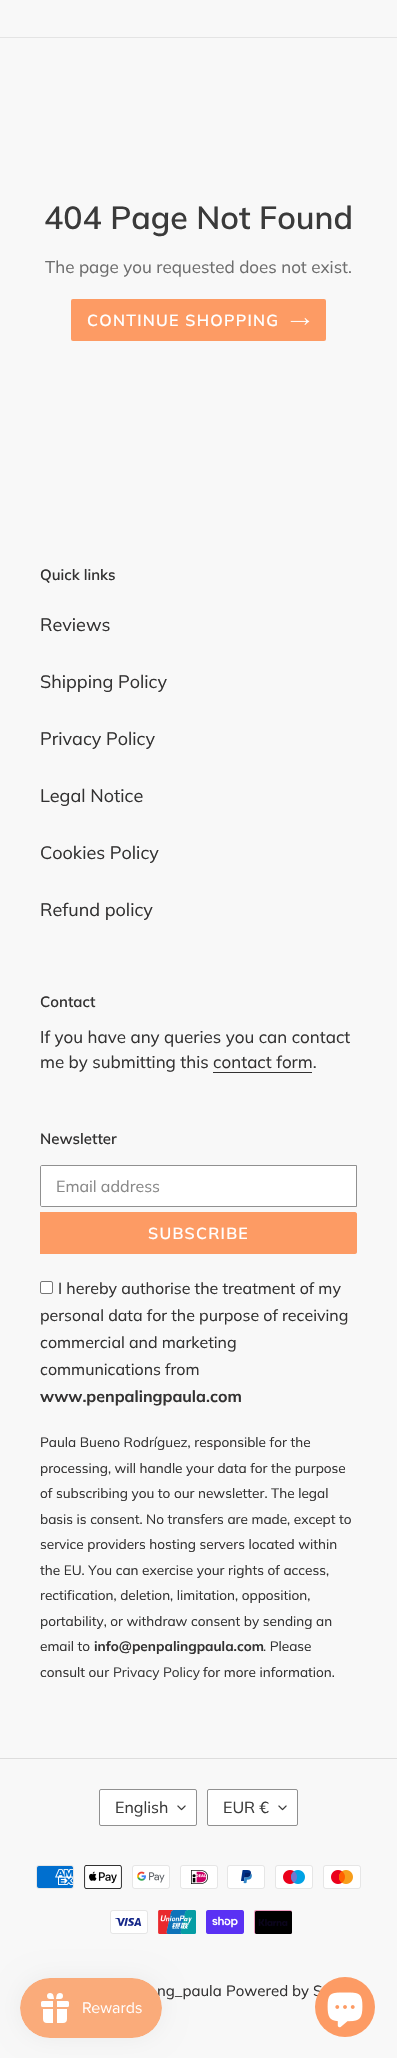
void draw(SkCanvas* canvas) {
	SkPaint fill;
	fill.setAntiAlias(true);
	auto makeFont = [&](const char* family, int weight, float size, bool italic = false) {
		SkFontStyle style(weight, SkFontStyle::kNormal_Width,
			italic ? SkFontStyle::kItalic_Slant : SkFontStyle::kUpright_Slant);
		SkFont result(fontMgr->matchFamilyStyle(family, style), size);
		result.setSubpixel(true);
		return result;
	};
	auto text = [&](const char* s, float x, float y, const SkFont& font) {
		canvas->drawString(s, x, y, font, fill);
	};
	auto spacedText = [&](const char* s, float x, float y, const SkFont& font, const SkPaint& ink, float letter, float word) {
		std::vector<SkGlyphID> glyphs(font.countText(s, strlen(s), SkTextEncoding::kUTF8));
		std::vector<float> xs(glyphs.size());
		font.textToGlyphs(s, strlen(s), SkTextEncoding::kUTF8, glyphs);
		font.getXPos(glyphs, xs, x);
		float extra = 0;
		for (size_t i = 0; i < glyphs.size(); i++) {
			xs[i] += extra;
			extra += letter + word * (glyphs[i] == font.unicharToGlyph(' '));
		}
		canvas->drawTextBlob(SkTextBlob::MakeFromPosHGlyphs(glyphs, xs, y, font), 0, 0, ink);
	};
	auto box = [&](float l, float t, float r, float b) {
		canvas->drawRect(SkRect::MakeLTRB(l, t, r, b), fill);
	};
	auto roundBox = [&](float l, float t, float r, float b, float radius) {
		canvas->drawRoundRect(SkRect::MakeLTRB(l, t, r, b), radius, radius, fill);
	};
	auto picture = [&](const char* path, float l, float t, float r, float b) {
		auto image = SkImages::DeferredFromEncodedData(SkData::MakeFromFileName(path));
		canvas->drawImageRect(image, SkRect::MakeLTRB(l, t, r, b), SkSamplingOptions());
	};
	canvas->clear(0xFFF8F8F8);
	fill.setColor(0xFFE4E4E4);
	box(0, 37, 397, 38);
	fill.setColor(0xFFFD9B64);
	roundBox(71, 299, 326, 341, 2);
	picture("image0.png", 290, 317, 310, 325);
	fill.setColor(0xFF333232);
	box(213, 1072, 312, 1073);
	fill.setColor(0xFFFFFFFF);
	canvas->drawPath(SkPathBuilder().moveTo(42, 1165.5f).lineTo(356.5f, 1165.5f).lineTo(356.5f, 1206.5f).lineTo(42, 1206.5f).cubicTo(41, 1206.5f, 40.5f, 1206, 40.5f, 1205).lineTo(40.5f, 1167).cubicTo(40.5f, 1166, 41, 1165.5f, 42, 1165.5f).close().detach(), fill);
	fill.setStyle(SkPaint::kStroke_Style);
	fill.setStrokeWidth(1);
	fill.setColor(0xFF909090);
	canvas->drawPath(SkPathBuilder().moveTo(42, 1165.5f).lineTo(356.5f, 1165.5f).lineTo(356.5f, 1206.5f).lineTo(42, 1206.5f).cubicTo(41, 1206.5f, 40.5f, 1206, 40.5f, 1205).lineTo(40.5f, 1167).cubicTo(40.5f, 1166, 41, 1165.5f, 42, 1165.5f).close().detach(), fill);
	fill.setStyle(SkPaint::kFill_Style);
	fill.setColor(0xFFFD9B64);
	canvas->drawPath(SkPathBuilder().moveTo(40, 1212).lineTo(355, 1212).cubicTo(356, 1212, 357, 1213, 357, 1214).lineTo(357, 1252).cubicTo(357, 1253, 356, 1254, 355, 1254).lineTo(40, 1254).close().detach(), fill);
	fill.setColor(0xFFFFFFFF);
	canvas->drawRoundRect(SkRect::MakeLTRB(40.5f, 1281.5f, 52.5f, 1293.5f), 1.5f, 1.5f, fill);
	fill.setStyle(SkPaint::kStroke_Style);
	fill.setColor(0xFF767676);
	canvas->drawRoundRect(SkRect::MakeLTRB(40.5f, 1281.5f, 52.5f, 1293.5f), 1.5f, 1.5f, fill);
	fill.setStyle(SkPaint::kFill_Style);
	fill.setColor(0xFFDDDDDD);
	box(0, 1758, 397, 1759);
	fill.setColor(0xFFFFFFFF);
	roundBox(99, 1789, 197, 1826, 2);
	picture("image1.png", 177, 1805, 186, 1811);
	fill.setStyle(SkPaint::kStroke_Style);
	fill.setColor(0xFF909090);
	canvas->drawRoundRect(SkRect::MakeLTRB(99.5f, 1789.5f, 196.5f, 1825.5f), 1.5f, 1.5f, fill);
	fill.setStyle(SkPaint::kFill_Style);
	fill.setColor(0xFFFFFFFF);
	roundBox(207, 1789, 298, 1826, 2);
	picture("image1.png", 278, 1805, 287, 1811);
	fill.setStyle(SkPaint::kStroke_Style);
	fill.setColor(0xFF909090);
	canvas->drawRoundRect(SkRect::MakeLTRB(207.5f, 1789.5f, 297.5f, 1825.5f), 1.5f, 1.5f, fill);
	picture("image2.png", 36, 1865, 74, 1889);
	picture("image3.png", 84, 1865, 122, 1889);
	picture("image4.png", 132, 1865, 170, 1889);
	picture("image5.png", 180, 1865, 218, 1889);
	picture("image6.png", 227, 1865, 265, 1889);
	picture("image7.png", 275, 1865, 313, 1889);
	picture("image8.png", 323, 1865, 361, 1889);
	picture("image9.png", 110, 1910, 148, 1934);
	picture("image10.png", 158, 1910, 196, 1934);
	picture("image11.png", 206, 1910, 244, 1934);
	picture("image12.png", 254, 1910, 292, 1934);
	fill.setStyle(SkPaint::kFill_Style);
	fill.setColor(0x0D000000);
	fill.setMaskFilter(SkMaskFilter::MakeBlur(kNormal_SkBlurStyle, 12.5f));
	canvas->drawRoundRect(SkRect::MakeLTRB(20, 1978, 162, 2038), 30, 30, fill);
	fill.setMaskFilter(nullptr);
	auto font1 = makeFont("Muli", 600, 32);
	fill.setColor(0xFF3A3A3A);
	text("404 Page Not Found", 44, 229, font1);
	auto font2 = makeFont("Muli", 400, 17);
	fill.setColor(0xFF6D6D6D);
	text("The page you requested does not exist.", 45, 273, font2);
	auto font3 = makeFont("Muli", 600, 16);
	fill.setColor(0xFFFFFFFF);
	spacedText("CONTINUE SHOPPING", 87, 326, font3, fill, 1.25f, 0);
	auto font4 = makeFont("Muli", 600, 15);
	fill.setColor(0xFF333232);
	text("Quick links", 40, 580, font4);
	auto font5 = makeFont("Muli", 400, 18);
	text("Reviews", 40, 631, font5);
	text("Shipping Policy", 40, 688, font5);
	text("Privacy Policy", 40, 745, font5);
	text("Legal Notice", 40, 802, font5);
	text("Cookies Policy", 40, 859, font5);
	text("Refund policy", 40, 916, font5);
	text("Contact", 40, 1007, font4);
	text("If you have any queries you can contact", 40, 1043, font2);
	text("me by submitting this contact form.", 40, 1068, font2);
	text("Newsletter", 40, 1144, font4);
	auto font6 = makeFont("Muli", 400, 16);
	fill.setColor(0xFF898989);
	text("Email address", 56, 1192, font6);
	fill.setColor(0xFFFFFFFF);
	spacedText("SUBSCRIBE", 148, 1239, font3, fill, 1.25f, 0);
	fill.setColor(0xFF333232);
	text("I hereby authorise the treatment of my", 58, 1294, font6);
	text("personal data for the purpose of receiving", 40, 1321, font6);
	text("commercial and marketing", 40, 1348, font6);
	text("communications from", 40, 1375, font6);
	auto font7 = makeFont("Muli", 700, 16);
	text("www.penpalingpaula.com", 40, 1402, font7);
	auto font8 = makeFont("Muli", 400, 13.6f);
	text("Paula Bueno Rodríguez, responsible for the", 40, 1447, font8);
	text("processing, will handle your data for the purpose", 40, 1473, font8);
	text("of subscribing you to our newsletter. The legal", 40, 1498, font8);
	text("basis is consent. No transfers are made, except to", 40, 1524, font8);
	text("service providers hosting servers located within", 40, 1549, font8);
	text("the EU. You can exercise your rights of access,", 40, 1575, font8);
	text("rectification, deletion, limitation, opposition,", 40, 1600, font8);
	text("portability, or withdraw consent by sending an", 40, 1626, font8);
	text("email to", 40, 1651, font8);
	auto font9 = makeFont("Muli", 700, 13.6f);
	text("info@penpalingpaula.com", 94, 1651, font9);
	text(". Please", 263, 1651, font8);
	text("consult our", 40, 1677, font8);
	fill.setColor(0xFF3A3A3A);
	text("Privacy Policy", 113, 1677, font8);
	fill.setColor(0xFF333232);
	text("for more information.", 203, 1677, font8);
	fill.setColor(0xFF3A3A3A);
	text("English", 115, 1813, font6);
	text("EUR €", 223, 1813, font6);
	auto font10 = makeFont("Muli", 400, 15);
	fill.setColor(0xFF333232);
	text("ng_paula", 157, 1996, font10);
	text("Powered by S", 226, 1996, font10);
	picture("image13.png", 20, 1978, 162, 2038);
	fill.setColor(0xFFFD9B64);
	canvas->drawCircle(345, 2007, 30, fill);
	picture("image14.png", 327, 1992, 363, 2028);
}
